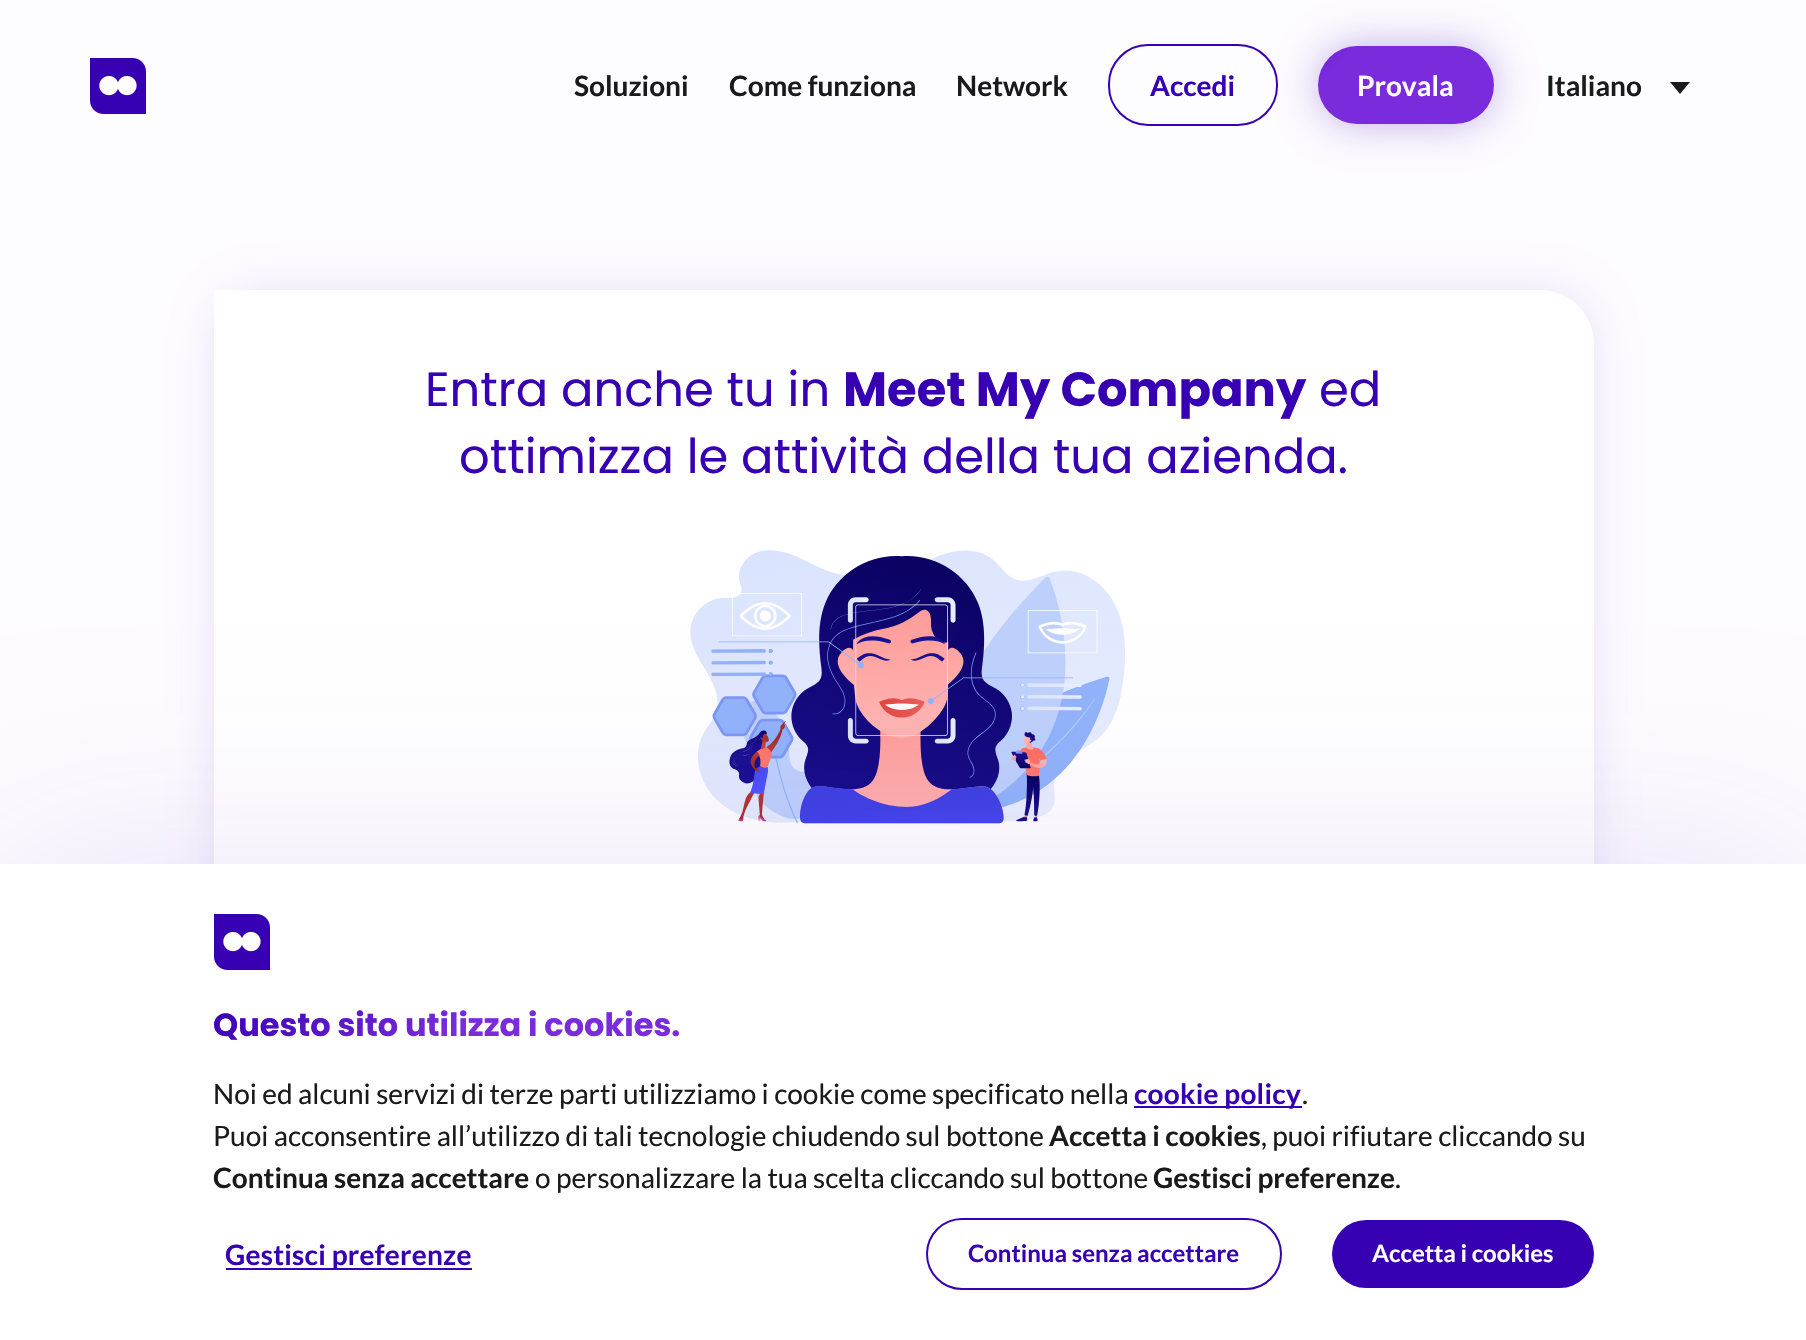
void draw(SkCanvas* canvas) {
	SkPaint fill;
	fill.setAntiAlias(true);
	auto makeFont = [&](const char* family, int weight, float size, bool italic = false) {
		SkFontStyle style(weight, SkFontStyle::kNormal_Width,
			italic ? SkFontStyle::kItalic_Slant : SkFontStyle::kUpright_Slant);
		SkFont result(fontMgr->matchFamilyStyle(family, style), size);
		result.setSubpixel(true);
		return result;
	};
	auto text = [&](const char* s, float x, float y, const SkFont& font) {
		canvas->drawString(s, x, y, font, fill);
	};
	auto spacedText = [&](const char* s, float x, float y, const SkFont& font, const SkPaint& ink, float letter, float word) {
		std::vector<SkGlyphID> glyphs(font.countText(s, strlen(s), SkTextEncoding::kUTF8));
		std::vector<float> xs(glyphs.size());
		font.textToGlyphs(s, strlen(s), SkTextEncoding::kUTF8, glyphs);
		font.getXPos(glyphs, xs, x);
		float extra = 0;
		for (size_t i = 0; i < glyphs.size(); i++) {
			xs[i] += extra;
			extra += letter + word * (glyphs[i] == font.unicharToGlyph(' '));
		}
		canvas->drawTextBlob(SkTextBlob::MakeFromPosHGlyphs(glyphs, xs, y, font), 0, 0, ink);
	};
	auto box = [&](float l, float t, float r, float b) {
		canvas->drawRect(SkRect::MakeLTRB(l, t, r, b), fill);
	};
	auto roundBox = [&](float l, float t, float r, float b, float radius) {
		canvas->drawRoundRect(SkRect::MakeLTRB(l, t, r, b), radius, radius, fill);
	};
	auto picture = [&](const char* path, float l, float t, float r, float b) {
		auto image = SkImages::DeferredFromEncodedData(SkData::MakeFromFileName(path));
		canvas->drawImageRect(image, SkRect::MakeLTRB(l, t, r, b), SkSamplingOptions());
	};
	canvas->clear(0xFFFDFCFF);
	picture("image0.png", 90, 58, 146, 114);
	fill.setStyle(SkPaint::kStroke_Style);
	fill.setStrokeWidth(2);
	fill.setColor(0xFF3700B3);
	canvas->drawRoundRect(SkRect::MakeLTRB(1109, 45, 1277, 125), 39, 39, fill);
	fill.setStyle(SkPaint::kFill_Style);
	fill.setColor(0x4D3700B3);
	fill.setMaskFilter(SkMaskFilter::MakeBlur(kNormal_SkBlurStyle, 20));
	canvas->drawRoundRect(SkRect::MakeLTRB(1318, 46, 1494, 124), 39, 39, fill);
	fill.setMaskFilter(nullptr);
	{
		const SkColor colors[] = {0xFF3700B3, 0xFF7A2BDB, 0xFF7A2BDB};
		const float stops[] = {0, 0.5f, 1};
		const SkPoint ends[] = {{1210, -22}, {1425, 193}};
		fill.setShader(SkGradientShader::MakeLinear(ends, colors, stops, 3, SkTileMode::kClamp));
		fill.setAlpha(255);
	}
	roundBox(1318, 46, 1494, 124, 39);
	fill.setShader(nullptr);
	fill.setColor(0xFF1A1A1A);
	canvas->drawPath(SkPathBuilder().moveTo(1690, 82).lineTo(1680, 94).lineTo(1670, 82).close().detach(), fill);
	fill.setColor(0x1A3700B3);
	fill.setMaskFilter(SkMaskFilter::MakeBlur(kNormal_SkBlurStyle, 20));
	canvas->drawRoundRect(SkRect::MakeLTRB(214, 290, 1594, 1026), 54, 54, fill);
	fill.setMaskFilter(nullptr);
	fill.setColor(0xFFFFFFFF);
	canvas->drawPath(SkPathBuilder().moveTo(214, 290).lineTo(1540, 290).cubicTo(1570, 290, 1594, 314, 1594, 344).lineTo(1594, 1026).lineTo(268, 1026).cubicTo(238, 1026, 214, 1002, 214, 972).close().detach(), fill);
	picture("image1.png", 690, 550, 1125, 824);
	fill.setColor(0x1A3700B3);
	fill.setMaskFilter(SkMaskFilter::MakeBlur(kNormal_SkBlurStyle, 100));
	canvas->drawRect(SkRect::MakeLTRB(0, 864, 1806, 1340), fill);
	fill.setMaskFilter(nullptr);
	fill.setColor(0xFFFFFFFF);
	box(0, 864, 1806, 1340);
	picture("image2.png", 214, 914, 270, 970);
	fill.setColor(0xFF3700B3);
	box(1134, 1106, 1302, 1108);
	box(226, 1268, 472, 1270);
	fill.setStyle(SkPaint::kStroke_Style);
	canvas->drawRoundRect(SkRect::MakeLTRB(927, 1219, 1281, 1289), 35, 35, fill);
	fill.setStyle(SkPaint::kFill_Style);
	roundBox(1332, 1220, 1594, 1288, 34);
	auto font1 = makeFont("Lato", 700, 28);
	fill.setColor(0xFF1A1A1A);
	text("Soluzioni", 574, 96, font1);
	text("Come funziona", 729, 96, font1);
	text("Network", 956, 96, font1);
	fill.setColor(0xFF3700B3);
	text("Accedi", 1150, 96, font1);
	fill.setColor(0xFFFFFFFF);
	text("Provala", 1357, 96, font1);
	fill.setColor(0xFF1A1A1A);
	text("Italiano", 1546, 96, font1);
	auto font2 = makeFont("Poppins", 400, 48);
	fill.setColor(0xFF3700B3);
	text("Entra anche tu in", 425, 406, font2);
	auto font3 = makeFont("Poppins", 700, 48);
	text("Meet My Company", 843, 406, font3);
	text("ed", 1319, 406, font2);
	text("ottimizza le attività della tua azienda.", 459, 473, font2);
	auto font4 = makeFont("Poppins", 700, 32);
	{
		const SkColor colors[] = {0xFF3700B3, 0xFF7A2BDB, 0xFF7A2BDB};
		const float stops[] = {0, 0.5f, 1};
		const SkPoint ends[] = {{313, 902}, {580, 1169}};
		fill.setShader(SkGradientShader::MakeLinear(ends, colors, stops, 3, SkTileMode::kClamp));
		fill.setAlpha(255);
	}
	text("Questo sito utilizza i cookies.", 213, 1036, font4);
	auto font5 = makeFont("Lato", 400, 28);
	fill.setShader(nullptr);
	fill.setColor(0xFF1A1A1A);
	text("Noi ed alcuni servizi di terze parti utilizziamo i cookie come specificato nella", 213, 1104, font5);
	fill.setColor(0xFF3700B3);
	spacedText("cookie policy", 1134, 1104, font1, fill, 0.25f, 0);
	fill.setColor(0xFF1A1A1A);
	text(".", 1302, 1104, font5);
	text("Puoi acconsentire all’utilizzo di tali tecnologie chiudendo sul bottone", 213, 1146, font5);
	text("Accetta i cookies", 1049, 1146, font1);
	text(", puoi rifiutare cliccando su", 1261, 1146, font5);
	text("Continua senza accettare", 213, 1188, font1);
	text("o personalizzare la tua scelta cliccando sul bottone", 535, 1188, font5);
	text("Gestisci preferenze", 1153, 1188, font1);
	text(".", 1395, 1188, font5);
	fill.setColor(0xFF3700B3);
	spacedText("Gestisci preferenze", 225, 1265, font1, fill, 0.25f, 0);
	auto font6 = makeFont("Lato", 700, 24);
	text("Continua senza accettare", 968, 1262, font6);
	fill.setColor(0xFFFFFFFF);
	text("Accetta i cookies", 1372, 1262, font6);
}
